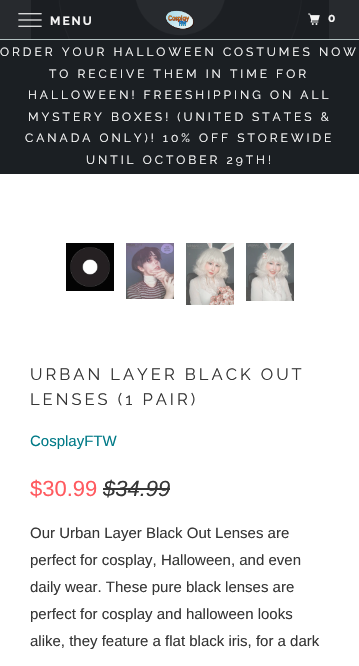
void draw(SkCanvas* canvas) {
	SkPaint fill;
	fill.setAntiAlias(true);
	auto makeFont = [&](const char* family, int weight, float size, bool italic = false) {
		SkFontStyle style(weight, SkFontStyle::kNormal_Width,
			italic ? SkFontStyle::kItalic_Slant : SkFontStyle::kUpright_Slant);
		SkFont result(fontMgr->matchFamilyStyle(family, style), size);
		result.setSubpixel(true);
		return result;
	};
	auto text = [&](const char* s, float x, float y, const SkFont& font) {
		canvas->drawString(s, x, y, font, fill);
	};
	auto spacedText = [&](const char* s, float x, float y, const SkFont& font, const SkPaint& ink, float letter, float word) {
		std::vector<SkGlyphID> glyphs(font.countText(s, strlen(s), SkTextEncoding::kUTF8));
		std::vector<float> xs(glyphs.size());
		font.textToGlyphs(s, strlen(s), SkTextEncoding::kUTF8, glyphs);
		font.getXPos(glyphs, xs, x);
		float extra = 0;
		for (size_t i = 0; i < glyphs.size(); i++) {
			xs[i] += extra;
			extra += letter + word * (glyphs[i] == font.unicharToGlyph(' '));
		}
		canvas->drawTextBlob(SkTextBlob::MakeFromPosHGlyphs(glyphs, xs, y, font), 0, 0, ink);
	};
	auto box = [&](float l, float t, float r, float b) {
		canvas->drawRect(SkRect::MakeLTRB(l, t, r, b), fill);
	};
	auto picture = [&](const char* path, float l, float t, float r, float b) {
		auto image = SkImages::DeferredFromEncodedData(SkData::MakeFromFileName(path));
		canvas->drawImageRect(image, SkRect::MakeLTRB(l, t, r, b), SkSamplingOptions());
	};
	canvas->clear(0xFFFFFFFF);
	picture("image3.png", 31, 0, 329, 40);
	fill.setColor(0xF21B1F23);
	box(0, 0, 359, 40);
	fill.setColor(0xF2B8C6C6);
	box(0, 39, 359, 40);
	picture("image0.png", 18, 13, 42, 27);
	picture("image1.png", 165, 10, 194, 30);
	picture("image2.png", 308, 13, 320, 25);
	fill.setColor(0xFF1B1F23);
	box(0, 40, 359, 174);
	picture("image4.png", 66, 243, 114, 291);
	picture("image5.png", 126, 243, 174, 299);
	picture("image6.png", 186, 243, 234, 305);
	picture("image7.png", 246, 243, 294, 301);
	fill.setColor(0xFF363636);
	box(103, 488, 170, 490);
	auto font1 = makeFont("Raleway", 700, 12);
	fill.setColor(0xFFF4F4F4);
	spacedText("MENU", 50, 25, font1, fill, 2, 0);
	spacedText("0", 328, 22, font1, fill, 2, 0);
	auto font2 = makeFont("Raleway", 400, 12);
	fill.setColor(0xFFFFFFFF);
	spacedText("ORDER YOUR HALLOWEEN COSTUMES NOW", 0, 56, font2, fill, 3, 0);
	spacedText("TO RECEIVE THEM IN TIME FOR", 49, 78, font2, fill, 3, 0);
	spacedText("HALLOWEEN! FREESHIPPING ON ALL", 28, 99, font2, fill, 3, 0);
	spacedText("MYSTERY BOXES! (UNITED STATES &", 28, 121, font2, fill, 3, 0);
	spacedText("CANADA ONLY)! 10% OFF STOREWIDE", 25, 142, font2, fill, 3, 0);
	spacedText("UNTIL OCTOBER 29TH!", 86, 164, font2, fill, 3, 0);
	auto font3 = makeFont("Raleway", 400, 16.5f);
	fill.setColor(0xFF363636);
	spacedText("URBAN LAYER BLACK OUT", 30, 380, font3, fill, 3, 0);
	spacedText("LENSES (1 PAIR)", 30, 405, font3, fill, 3, 0);
	auto font4 = makeFont("Liberation Sans", 400, 15);
	fill.setColor(0xFF007A87);
	text("CosplayFTW", 30, 446, font4);
	auto font5 = makeFont("Liberation Sans", 400, 22);
	fill.setColor(0xFFFF5A5F);
	text("$30.99", 30, 496, font5);
	auto font6 = makeFont("Liberation Sans", 400, 22, true);
	fill.setColor(0xFF363636);
	text("$34.99", 103, 496, font6);
	text("Our Urban Layer Black Out Lenses are", 30, 538, font4);
	text("perfect for cosplay, Halloween, and even", 30, 565, font4);
	text("daily wear. These pure black lenses are", 30, 592, font4);
	text("perfect for cosplay and halloween looks", 30, 619, font4);
	text("alike, they feature a flat black iris, for a dark", 30, 646, font4);
}
